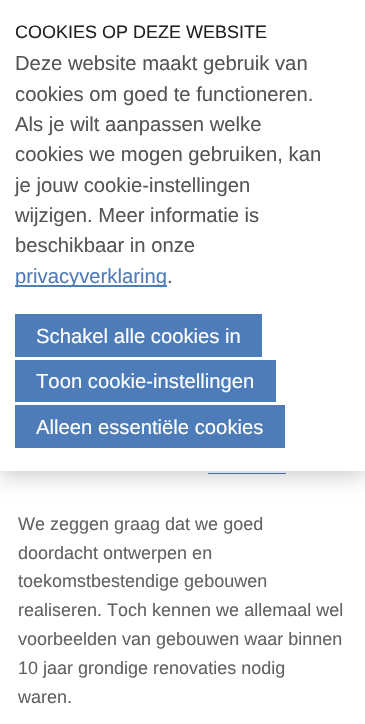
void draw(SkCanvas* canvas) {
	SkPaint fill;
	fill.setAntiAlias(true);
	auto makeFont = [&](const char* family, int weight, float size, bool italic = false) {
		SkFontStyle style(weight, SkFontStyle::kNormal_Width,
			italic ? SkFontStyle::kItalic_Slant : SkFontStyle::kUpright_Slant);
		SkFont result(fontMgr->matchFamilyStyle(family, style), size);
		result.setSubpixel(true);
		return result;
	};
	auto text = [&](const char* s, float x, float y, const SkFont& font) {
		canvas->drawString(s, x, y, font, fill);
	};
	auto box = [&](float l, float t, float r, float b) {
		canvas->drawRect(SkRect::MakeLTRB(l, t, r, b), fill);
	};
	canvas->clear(0xFFFFFFFF);
	fill.setColor(0xFF4D7CB9);
	box(208, 473, 286, 474);
	fill.setColor(0x33000000);
	fill.setMaskFilter(SkMaskFilter::MakeBlur(kNormal_SkBlurStyle, 10));
	canvas->drawRect(SkRect::MakeLTRB(0, 5, 365, 476), fill);
	fill.setMaskFilter(nullptr);
	fill.setColor(0xFFFFFFFF);
	box(0, 0, 365, 471);
	fill.setColor(0xFF4D7CB9);
	box(15, 285, 167, 287);
	box(15, 314, 262, 357);
	box(15, 360, 276, 402);
	box(15, 405, 285, 448);
	auto font1 = makeFont("Liberation Sans", 400, 18);
	fill.setColor(0xFF222222);
	text("COOKIES OP DEZE WEBSITE", 15, 38, font1);
	auto font2 = makeFont("Liberation Sans", 400, 20.25f);
	fill.setColor(0xFF555555);
	text("Deze website maakt gebruik van", 15, 70, font2);
	text("cookies om goed te functioneren.", 15, 101, font2);
	text("Als je wilt aanpassen welke", 15, 131, font2);
	text("cookies we mogen gebruiken, kan", 15, 161, font2);
	text("je jouw cookie-instellingen", 15, 192, font2);
	text("wijzigen. Meer informatie is", 15, 222, font2);
	text("beschikbaar in onze", 15, 252, font2);
	fill.setColor(0xFF4D7CB9);
	text("privacyverklaring", 15, 283, font2);
	fill.setColor(0xFF555555);
	text(".", 167, 283, font2);
	fill.setColor(0xFFFFFFFF);
	text("Schakel alle cookies in", 36, 343, font2);
	text("Toon cookie-instellingen", 36, 388, font2);
	text("Alleen essentiële cookies", 36, 434, font2);
	fill.setColor(0xFF626262);
	text("We zeggen graag dat we goed", 18, 530, font1);
	text("doordacht ontwerpen en", 18, 559, font1);
	text("toekomstbestendige gebouwen", 18, 587, font1);
	text("realiseren. Toch kennen we allemaal wel", 18, 616, font1);
	text("voorbeelden van gebouwen waar binnen", 18, 645, font1);
	text("10 jaar grondige renovaties nodig", 18, 674, font1);
	text("waren.", 18, 703, font1);
}
